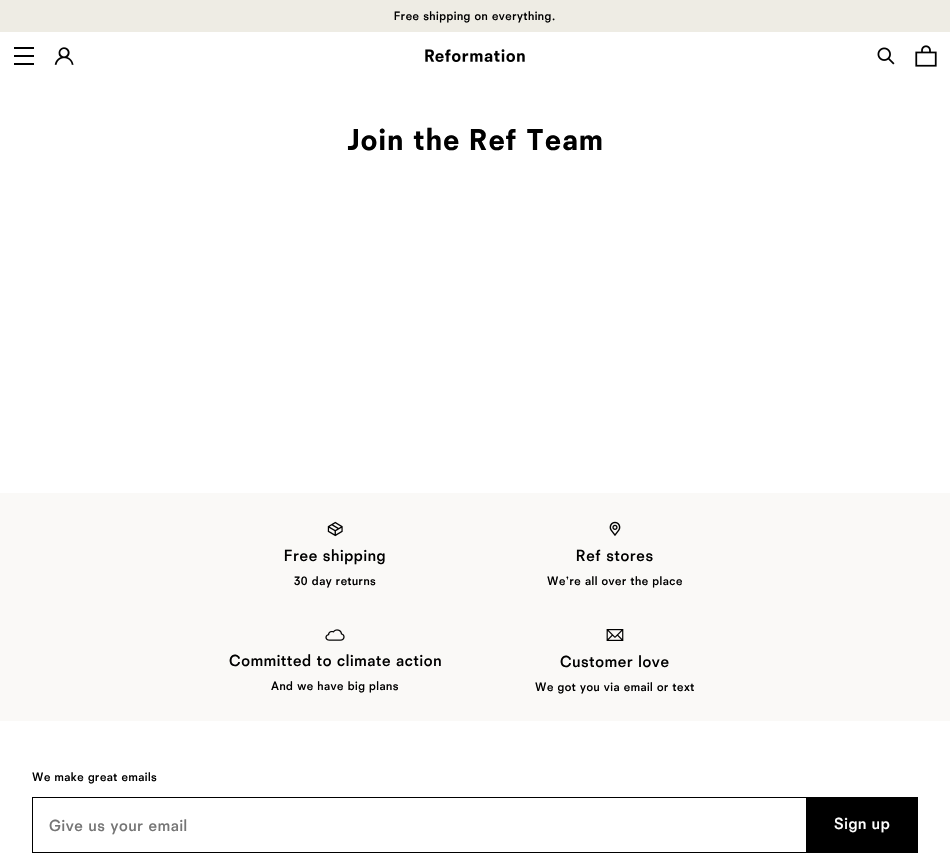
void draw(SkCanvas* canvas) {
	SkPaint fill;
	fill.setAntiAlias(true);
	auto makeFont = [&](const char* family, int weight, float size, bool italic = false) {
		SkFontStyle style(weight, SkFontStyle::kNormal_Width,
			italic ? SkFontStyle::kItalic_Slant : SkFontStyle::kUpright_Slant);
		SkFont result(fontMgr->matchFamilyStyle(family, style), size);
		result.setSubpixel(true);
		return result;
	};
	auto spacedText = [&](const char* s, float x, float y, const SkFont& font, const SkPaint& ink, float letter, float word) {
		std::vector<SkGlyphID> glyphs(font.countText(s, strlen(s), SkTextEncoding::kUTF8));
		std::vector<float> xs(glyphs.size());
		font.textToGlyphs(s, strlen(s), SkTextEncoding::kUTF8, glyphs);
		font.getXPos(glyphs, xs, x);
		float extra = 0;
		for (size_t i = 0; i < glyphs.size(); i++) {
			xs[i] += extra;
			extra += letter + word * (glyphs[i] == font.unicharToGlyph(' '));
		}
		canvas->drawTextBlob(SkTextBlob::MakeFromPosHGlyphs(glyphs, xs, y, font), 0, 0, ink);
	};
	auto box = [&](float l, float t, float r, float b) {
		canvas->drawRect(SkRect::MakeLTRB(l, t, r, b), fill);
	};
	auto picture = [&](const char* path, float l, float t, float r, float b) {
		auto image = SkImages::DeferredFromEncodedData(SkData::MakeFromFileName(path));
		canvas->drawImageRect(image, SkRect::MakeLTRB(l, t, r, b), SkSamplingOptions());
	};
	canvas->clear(0xFFFFFFFF);
	fill.setColor(0xFFEEECE4);
	box(0, 0, 950, 32);
	fill.setColor(0xFF000000);
	box(14, 47, 34, 49);
	box(14, 55, 34, 57);
	box(14, 63, 34, 65);
	picture("image0.png", 54, 47, 74, 65);
	picture("image1.png", 425, 49, 525, 62);
	picture("image2.png", 877, 47, 895, 65);
	picture("image3.png", 915, 45, 937, 67);
	fill.setColor(0xFFFAF9F7);
	box(0, 493, 950, 721);
	picture("image4.png", 327, 521, 343, 537);
	picture("image5.png", 609, 521, 621, 536);
	picture("image6.png", 325, 629, 345, 641);
	picture("image7.png", 606, 629, 624, 641);
	fill.setColor(0xFF000000);
	box(32, 797, 806, 798);
	box(32, 852, 806, 853);
	box(32, 797, 33, 853);
	box(806, 797, 918, 853);
	auto font1 = makeFont("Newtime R", 500, 12);
	spacedText("Free shipping on everything.", 394, 20, font1, fill, 0.5f, 0);
	auto font2 = makeFont("Newtime R", 900, 30);
	spacedText("Join the Ref Team", 347, 150, font2, fill, 1.25f, 0);
	auto font3 = makeFont("Newtime R", 500, 16);
	spacedText("Free shipping", 284, 561, font3, fill, 0.65f, 0);
	spacedText("30 day returns", 294, 585, font1, fill, 0.5f, 0);
	spacedText("Ref stores", 576, 561, font3, fill, 0.65f, 0);
	spacedText("We're all over the place", 547, 585, font1, fill, 0.5f, 0);
	spacedText("Committed to climate action", 229, 666, font3, fill, 0.65f, 0);
	spacedText("And we have big plans", 271, 690, font1, fill, 0.5f, 0);
	spacedText("Customer love", 560, 667, font3, fill, 0.65f, 0);
	spacedText("We got you via email or text", 535, 691, font1, fill, 0.5f, 0);
	spacedText("We make great emails", 32, 781, font1, fill, 0.5f, 0);
	fill.setColor(0xFF757575);
	spacedText("Give us your email", 49, 831, font3, fill, 0.65f, 0);
	fill.setColor(0xFFFFFFFF);
	spacedText("Sign up", 834, 829, font3, fill, 0.65f, 0);
}
